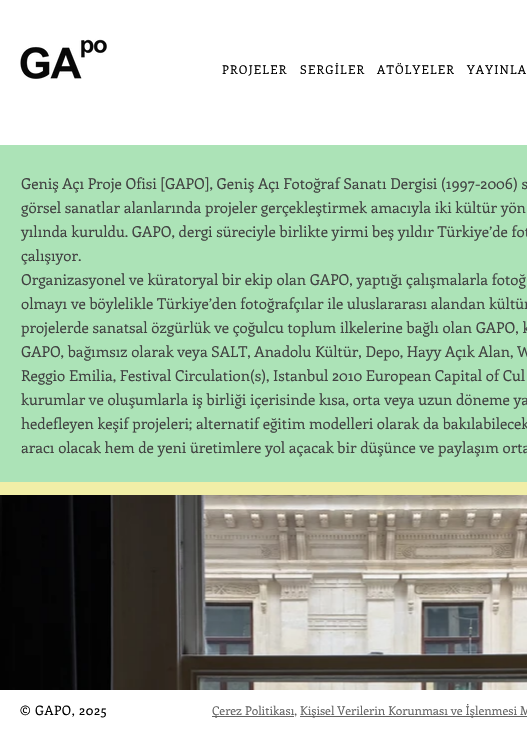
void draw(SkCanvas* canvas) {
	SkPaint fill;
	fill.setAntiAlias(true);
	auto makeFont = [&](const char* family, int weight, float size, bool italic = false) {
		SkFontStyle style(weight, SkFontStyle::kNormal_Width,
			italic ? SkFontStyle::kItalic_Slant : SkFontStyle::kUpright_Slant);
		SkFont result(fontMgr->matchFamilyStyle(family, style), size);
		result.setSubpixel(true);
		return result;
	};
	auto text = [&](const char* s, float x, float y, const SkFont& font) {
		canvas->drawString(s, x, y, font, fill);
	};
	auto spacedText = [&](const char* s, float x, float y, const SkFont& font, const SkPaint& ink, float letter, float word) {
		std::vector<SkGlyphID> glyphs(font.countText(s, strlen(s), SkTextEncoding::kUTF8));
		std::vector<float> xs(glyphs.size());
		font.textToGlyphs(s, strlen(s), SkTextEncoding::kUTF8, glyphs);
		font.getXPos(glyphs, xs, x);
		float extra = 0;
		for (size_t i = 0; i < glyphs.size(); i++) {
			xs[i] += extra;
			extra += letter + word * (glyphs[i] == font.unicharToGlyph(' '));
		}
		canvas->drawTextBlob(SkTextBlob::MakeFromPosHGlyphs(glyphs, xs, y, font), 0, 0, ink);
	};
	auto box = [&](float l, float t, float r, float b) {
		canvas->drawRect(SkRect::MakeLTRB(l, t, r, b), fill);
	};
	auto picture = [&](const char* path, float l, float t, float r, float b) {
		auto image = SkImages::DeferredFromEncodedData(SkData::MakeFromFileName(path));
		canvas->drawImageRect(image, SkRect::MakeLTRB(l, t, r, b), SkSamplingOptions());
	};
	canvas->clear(0xFFF1EEA7);
	fill.setColor(0xFFFFFFFF);
	box(0, 0, 527, 145);
	picture("image0.png", 20, 39, 107, 79);
	fill.setColor(0xFFACE3B7);
	box(0, 145, 527, 482);
	picture("image1.png", 0, 495, 527, 690);
	fill.setColor(0xFFFFFFFF);
	box(0, 690, 527, 741);
	fill.setColor(0xFF636363);
	box(212, 716, 294, 717);
	box(300, 716, 527, 717);
	auto font1 = makeFont("Enriqueta", 400, 12);
	fill.setColor(0xFF000000);
	spacedText("PROJELER", 222, 74, font1, fill, 1.25f, 0);
	spacedText("SERGİLER", 300, 74, font1, fill, 1.25f, 0);
	spacedText("ATÖLYELER", 377, 74, font1, fill, 1.25f, 0);
	spacedText("YAYINLA", 467, 74, font1, fill, 1.25f, 0);
	auto font2 = makeFont("Enriqueta", 400, 15);
	fill.setColor(0xFF414141);
	text("Geniş Açı Proje Ofisi [GAPO], Geniş Açı Fotoğraf Sanatı Dergisi (1997-2006) s", 21, 189, font2);
	text("görsel sanatlar alanlarında projeler gerçekleştirmek amacıyla iki kültür yön", 21, 213, font2);
	text("yılında kuruldu. GAPO, dergi süreciyle birlikte yirmi beş yıldır Türkiye’de fot", 21, 237, font2);
	text("çalışıyor.", 21, 261, font2);
	text("Organizasyonel ve küratoryal bir ekip olan GAPO, yaptığı çalışmalarla fotoğ", 21, 285, font2);
	text("olmayı ve böylelikle Türkiye’den fotoğrafçılar ile uluslararası alandan kültür", 21, 309, font2);
	text("projelerde sanatsal özgürlük ve çoğulcu toplum ilkelerine bağlı olan GAPO, k", 21, 333, font2);
	text("GAPO, bağımsız olarak veya SALT, Anadolu Kültür, Depo, Hayy Açık Alan, W", 21, 357, font2);
	text("Reggio Emilia, Festival Circulation(s), Istanbul 2010 European Capital of Cul", 21, 381, font2);
	text("kurumlar ve oluşumlarla iş birliği içerisinde kısa, orta veya uzun döneme ya", 21, 405, font2);
	text("hedefleyen keşif projeleri; alternatif eğitim modelleri olarak da bakılabilecek", 21, 429, font2);
	text("aracı olacak hem de yeni üretimlere yol açacak bir düşünce ve paylaşım orta", 21, 453, font2);
	auto font3 = makeFont("Enriqueta", 400, 13);
	fill.setColor(0xFF000000);
	spacedText("© GAPO, 2025", 20, 715, font3, fill, 0.6f, 0);
	fill.setColor(0xFF636363);
	text("Çerez Politikası,", 212, 715, font1);
	text("Kişisel Verilerin Korunması ve İşlenmesi M", 300, 715, font1);
}
